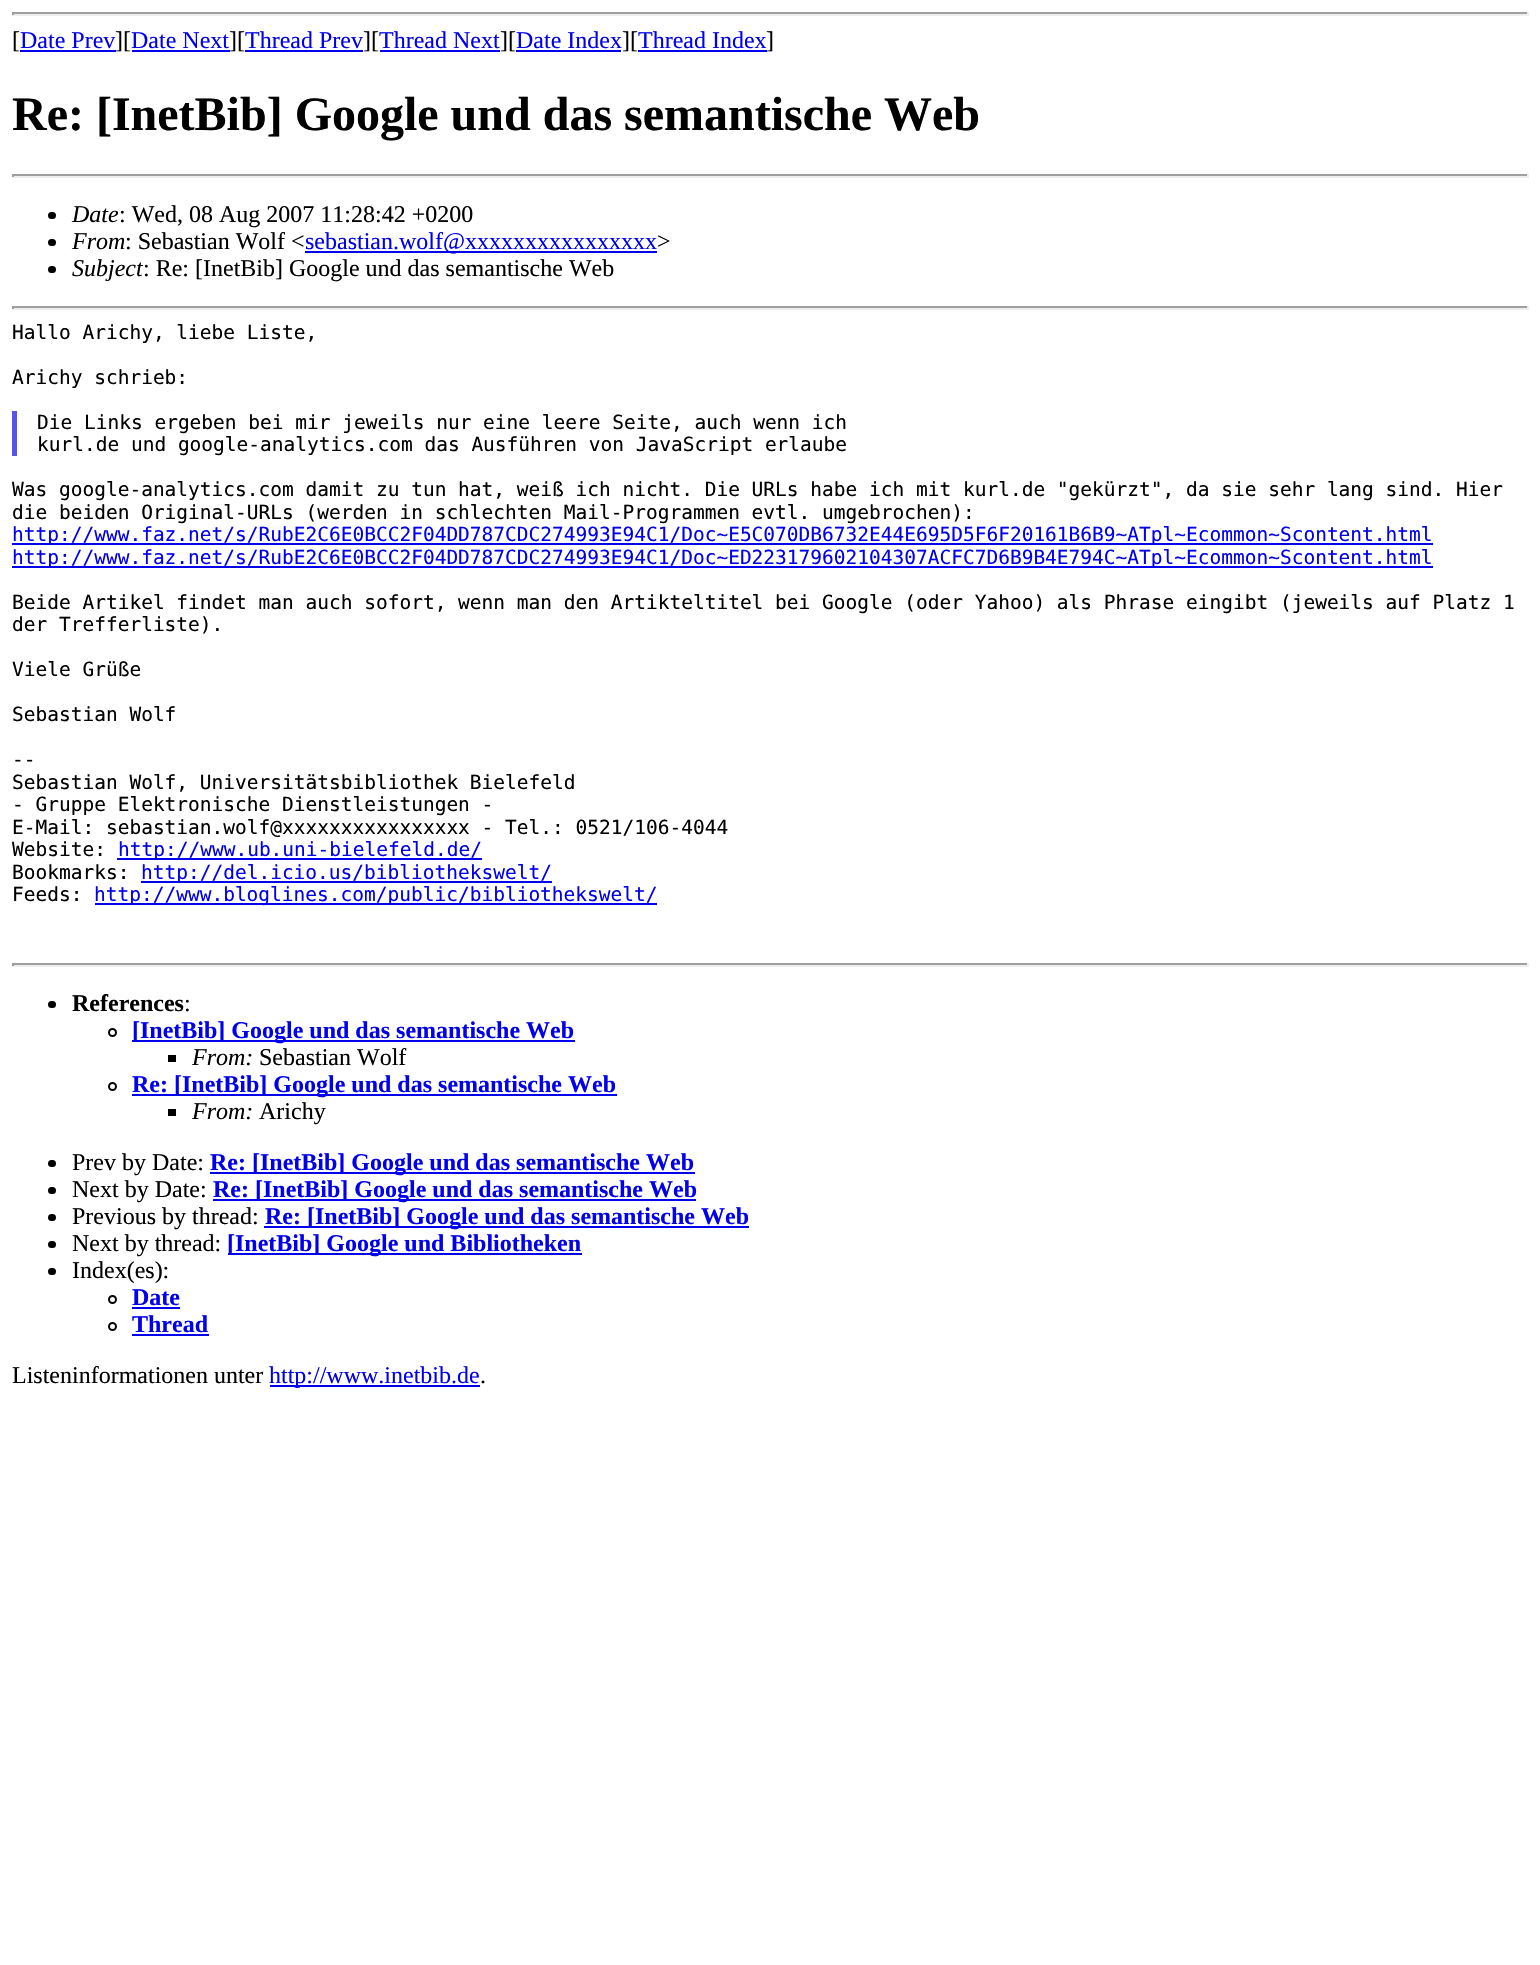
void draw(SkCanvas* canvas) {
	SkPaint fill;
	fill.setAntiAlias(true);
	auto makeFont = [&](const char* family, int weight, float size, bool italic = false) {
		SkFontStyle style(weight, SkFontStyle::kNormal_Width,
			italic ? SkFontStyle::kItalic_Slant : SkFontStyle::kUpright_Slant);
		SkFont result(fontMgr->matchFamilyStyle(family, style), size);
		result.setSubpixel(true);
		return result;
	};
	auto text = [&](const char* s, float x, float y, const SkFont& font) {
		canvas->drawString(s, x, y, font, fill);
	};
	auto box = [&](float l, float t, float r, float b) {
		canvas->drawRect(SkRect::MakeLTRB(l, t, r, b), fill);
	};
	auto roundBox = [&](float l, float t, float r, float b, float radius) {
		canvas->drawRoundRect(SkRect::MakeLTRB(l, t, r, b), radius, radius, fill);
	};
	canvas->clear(0xFFFFFFFF);
	fill.setColor(0xFF9F9F9F);
	box(12, 12, 1529, 14);
	fill.setColor(0xFFEEEEEE);
	box(1527, 12, 1529, 15);
	box(12, 14, 1529, 16);
	fill.setColor(0xFF9F9F9F);
	box(12, 12, 14, 15);
	fill.setColor(0xFF0000EE);
	box(20, 50, 116, 52);
	box(132, 50, 230, 52);
	box(245, 50, 363, 52);
	box(380, 50, 500, 52);
	box(516, 50, 621, 52);
	box(638, 50, 767, 52);
	fill.setColor(0xFF9F9F9F);
	box(12, 174, 1529, 176);
	fill.setColor(0xFFEEEEEE);
	box(1527, 174, 1529, 177);
	box(12, 176, 1529, 178);
	fill.setColor(0xFF9F9F9F);
	box(12, 174, 14, 177);
	fill.setColor(0xFF000000);
	roundBox(48, 212, 56, 219, 3.5f);
	roundBox(48, 239, 56, 246, 3.5f);
	fill.setColor(0xFF0000EE);
	box(305, 251, 657, 253);
	fill.setColor(0xFF000000);
	roundBox(48, 266, 56, 273, 3.5f);
	fill.setColor(0xFF9F9F9F);
	box(12, 306, 1529, 308);
	fill.setColor(0xFFEEEEEE);
	box(1527, 306, 1529, 309);
	box(12, 308, 1529, 310);
	fill.setColor(0xFF9F9F9F);
	box(12, 306, 14, 309);
	fill.setColor(0xFF5555EE);
	box(12, 411, 17, 456);
	fill.setColor(0xFF0000EE);
	box(12, 543, 1433, 545);
	box(12, 566, 1433, 568);
	box(117, 858, 482, 860);
	box(141, 881, 552, 883);
	box(95, 903, 657, 905);
	fill.setColor(0xFF9F9F9F);
	box(12, 963, 1529, 965);
	fill.setColor(0xFFEEEEEE);
	box(1527, 963, 1529, 966);
	box(12, 965, 1529, 967);
	fill.setColor(0xFF9F9F9F);
	box(12, 963, 14, 966);
	fill.setColor(0xFF000000);
	roundBox(48, 1001, 56, 1008, 3.5f);
	fill.setStyle(SkPaint::kStroke_Style);
	fill.setStrokeWidth(2);
	canvas->drawCircle(112.5f, 1032.5f, 3.5f, fill);
	fill.setStyle(SkPaint::kFill_Style);
	fill.setColor(0xFF0000EE);
	box(132, 1040, 575, 1042);
	fill.setColor(0xFF000000);
	box(168, 1055, 176, 1062);
	fill.setStyle(SkPaint::kStroke_Style);
	canvas->drawCircle(112.5f, 1086.5f, 3.5f, fill);
	fill.setStyle(SkPaint::kFill_Style);
	fill.setColor(0xFF0000EE);
	box(132, 1094, 617, 1096);
	fill.setColor(0xFF000000);
	box(168, 1109, 176, 1116);
	roundBox(48, 1160, 56, 1167, 3.5f);
	fill.setColor(0xFF0000EE);
	box(210, 1172, 695, 1174);
	fill.setColor(0xFF000000);
	roundBox(48, 1187, 56, 1194, 3.5f);
	fill.setColor(0xFF0000EE);
	box(213, 1199, 696, 1201);
	fill.setColor(0xFF000000);
	roundBox(48, 1214, 56, 1221, 3.5f);
	fill.setColor(0xFF0000EE);
	box(264, 1226, 749, 1228);
	fill.setColor(0xFF000000);
	roundBox(48, 1241, 56, 1248, 3.5f);
	fill.setColor(0xFF0000EE);
	box(228, 1253, 582, 1255);
	fill.setColor(0xFF000000);
	roundBox(48, 1268, 56, 1275, 3.5f);
	fill.setStyle(SkPaint::kStroke_Style);
	canvas->drawCircle(112.5f, 1299.5f, 3.5f, fill);
	fill.setStyle(SkPaint::kFill_Style);
	fill.setColor(0xFF0000EE);
	box(132, 1307, 180, 1309);
	fill.setStyle(SkPaint::kStroke_Style);
	fill.setColor(0xFF000000);
	canvas->drawCircle(112.5f, 1326.5f, 3.5f, fill);
	fill.setStyle(SkPaint::kFill_Style);
	fill.setColor(0xFF0000EE);
	box(132, 1334, 209, 1336);
	box(270, 1385, 480, 1387);
	auto font1 = makeFont("Liberation Serif", 400, 24);
	fill.setColor(0xFF000000);
	text("[", 12, 48, font1);
	fill.setColor(0xFF0000EE);
	text("Date Prev", 20, 48, font1);
	fill.setColor(0xFF000000);
	text("][", 115, 48, font1);
	fill.setColor(0xFF0000EE);
	text("Date Next", 131, 48, font1);
	fill.setColor(0xFF000000);
	text("][", 229, 48, font1);
	fill.setColor(0xFF0000EE);
	text("Thread Prev", 245, 48, font1);
	fill.setColor(0xFF000000);
	text("][", 363, 48, font1);
	fill.setColor(0xFF0000EE);
	text("Thread Next", 379, 48, font1);
	fill.setColor(0xFF000000);
	text("][", 500, 48, font1);
	fill.setColor(0xFF0000EE);
	text("Date Index", 516, 48, font1);
	fill.setColor(0xFF000000);
	text("][", 622, 48, font1);
	fill.setColor(0xFF0000EE);
	text("Thread Index", 638, 48, font1);
	fill.setColor(0xFF000000);
	text("]", 766, 48, font1);
	auto font2 = makeFont("Liberation Serif", 700, 48);
	text("Re: [InetBib] Google und das semantische Web", 12, 130, font2);
	auto font3 = makeFont("Liberation Serif", 400, 24, true);
	text("Date", 72, 222, font3);
	text(": Wed, 08 Aug 2007 11:28:42 +0200", 119, 222, font1);
	text("From", 72, 249, font3);
	text(": Sebastian Wolf <", 125, 249, font1);
	fill.setColor(0xFF0000EE);
	text("sebastian.wolf@xxxxxxxxxxxxxxxx", 305, 249, font1);
	fill.setColor(0xFF000000);
	text(">", 657, 249, font1);
	text("Subject", 72, 276, font3);
	text(": Re: [InetBib] Google und das semantische Web", 143, 276, font1);
	auto font4 = makeFont("DejaVu Sans Mono", 400, 19.5f);
	text("Hallo Arichy, liebe Liste,", 12, 339, font4);
	text("Arichy schrieb:", 12, 384, font4);
	text("Die Links ergeben bei mir jeweils nur eine leere Seite, auch wenn ich", 37, 429, font4);
	text("kurl.de und google-analytics.com das Ausführen von JavaScript erlaube", 37, 451, font4);
	text("Was google-analytics.com damit zu tun hat, weiß ich nicht. Die URLs habe ich mit kurl.de \"gekürzt\", da sie sehr lang sind. Hier", 12, 496, font4);
	text("die beiden Original-URLs (werden in schlechten Mail-Programmen evtl. umgebrochen):", 12, 519, font4);
	fill.setColor(0xFF0000EE);
	text("http://www.faz.net/s/RubE2C6E0BCC2F04DD787CDC274993E94C1/Doc~E5C070DB6732E44E695D5F6F20161B6B9~ATpl~Ecommon~Scontent.html", 12, 541, font4);
	text("http://www.faz.net/s/RubE2C6E0BCC2F04DD787CDC274993E94C1/Doc~ED223179602104307ACFC7D6B9B4E794C~ATpl~Ecommon~Scontent.html", 12, 564, font4);
	fill.setColor(0xFF000000);
	text("Beide Artikel findet man auch sofort, wenn man den Artikteltitel bei Google (oder Yahoo) als Phrase eingibt (jeweils auf Platz 1", 12, 609, font4);
	text("der Trefferliste).", 12, 631, font4);
	text("Viele Grüße", 12, 676, font4);
	text("Sebastian Wolf", 12, 721, font4);
	text("--", 12, 766, font4);
	text("Sebastian Wolf, Universitätsbibliothek Bielefeld", 12, 789, font4);
	text("- Gruppe Elektronische Dienstleistungen -", 12, 811, font4);
	text("E-Mail: sebastian.wolf@xxxxxxxxxxxxxxxx - Tel.: 0521/106-4044", 12, 834, font4);
	text("Website:", 12, 856, font4);
	fill.setColor(0xFF0000EE);
	text("http://www.ub.uni-bielefeld.de/", 118, 856, font4);
	fill.setColor(0xFF000000);
	text("Bookmarks:", 12, 879, font4);
	fill.setColor(0xFF0000EE);
	text("http://del.icio.us/bibliothekswelt/", 141, 879, font4);
	fill.setColor(0xFF000000);
	text("Feeds:", 12, 901, font4);
	fill.setColor(0xFF0000EE);
	text("http://www.bloglines.com/public/bibliothekswelt/", 94, 901, font4);
	auto font5 = makeFont("Liberation Serif", 700, 24);
	fill.setColor(0xFF000000);
	text("References", 72, 1011, font5);
	text(":", 184, 1011, font1);
	fill.setColor(0xFF0000EE);
	text("[InetBib] Google und das semantische Web", 132, 1038, font5);
	fill.setColor(0xFF000000);
	text("From:", 192, 1065, font3);
	text("Sebastian Wolf", 259, 1065, font1);
	fill.setColor(0xFF0000EE);
	text("Re: [InetBib] Google und das semantische Web", 132, 1092, font5);
	fill.setColor(0xFF000000);
	text("From:", 192, 1119, font3);
	text("Arichy", 259, 1119, font1);
	text("Prev by Date:", 72, 1170, font1);
	fill.setColor(0xFF0000EE);
	text("Re: [InetBib] Google und das semantische Web", 210, 1170, font5);
	fill.setColor(0xFF000000);
	text("Next by Date:", 72, 1197, font1);
	fill.setColor(0xFF0000EE);
	text("Re: [InetBib] Google und das semantische Web", 213, 1197, font5);
	fill.setColor(0xFF000000);
	text("Previous by thread:", 72, 1224, font1);
	fill.setColor(0xFF0000EE);
	text("Re: [InetBib] Google und das semantische Web", 265, 1224, font5);
	fill.setColor(0xFF000000);
	text("Next by thread:", 72, 1251, font1);
	fill.setColor(0xFF0000EE);
	text("[InetBib] Google und Bibliotheken", 227, 1251, font5);
	fill.setColor(0xFF000000);
	text("Index(es):", 72, 1278, font1);
	fill.setColor(0xFF0000EE);
	text("Date", 132, 1305, font5);
	text("Thread", 132, 1332, font5);
	fill.setColor(0xFF000000);
	text("Listeninformationen unter", 12, 1383, font1);
	fill.setColor(0xFF0000EE);
	text("http://www.inetbib.de", 269, 1383, font1);
	fill.setColor(0xFF000000);
	text(".", 480, 1383, font1);
}
